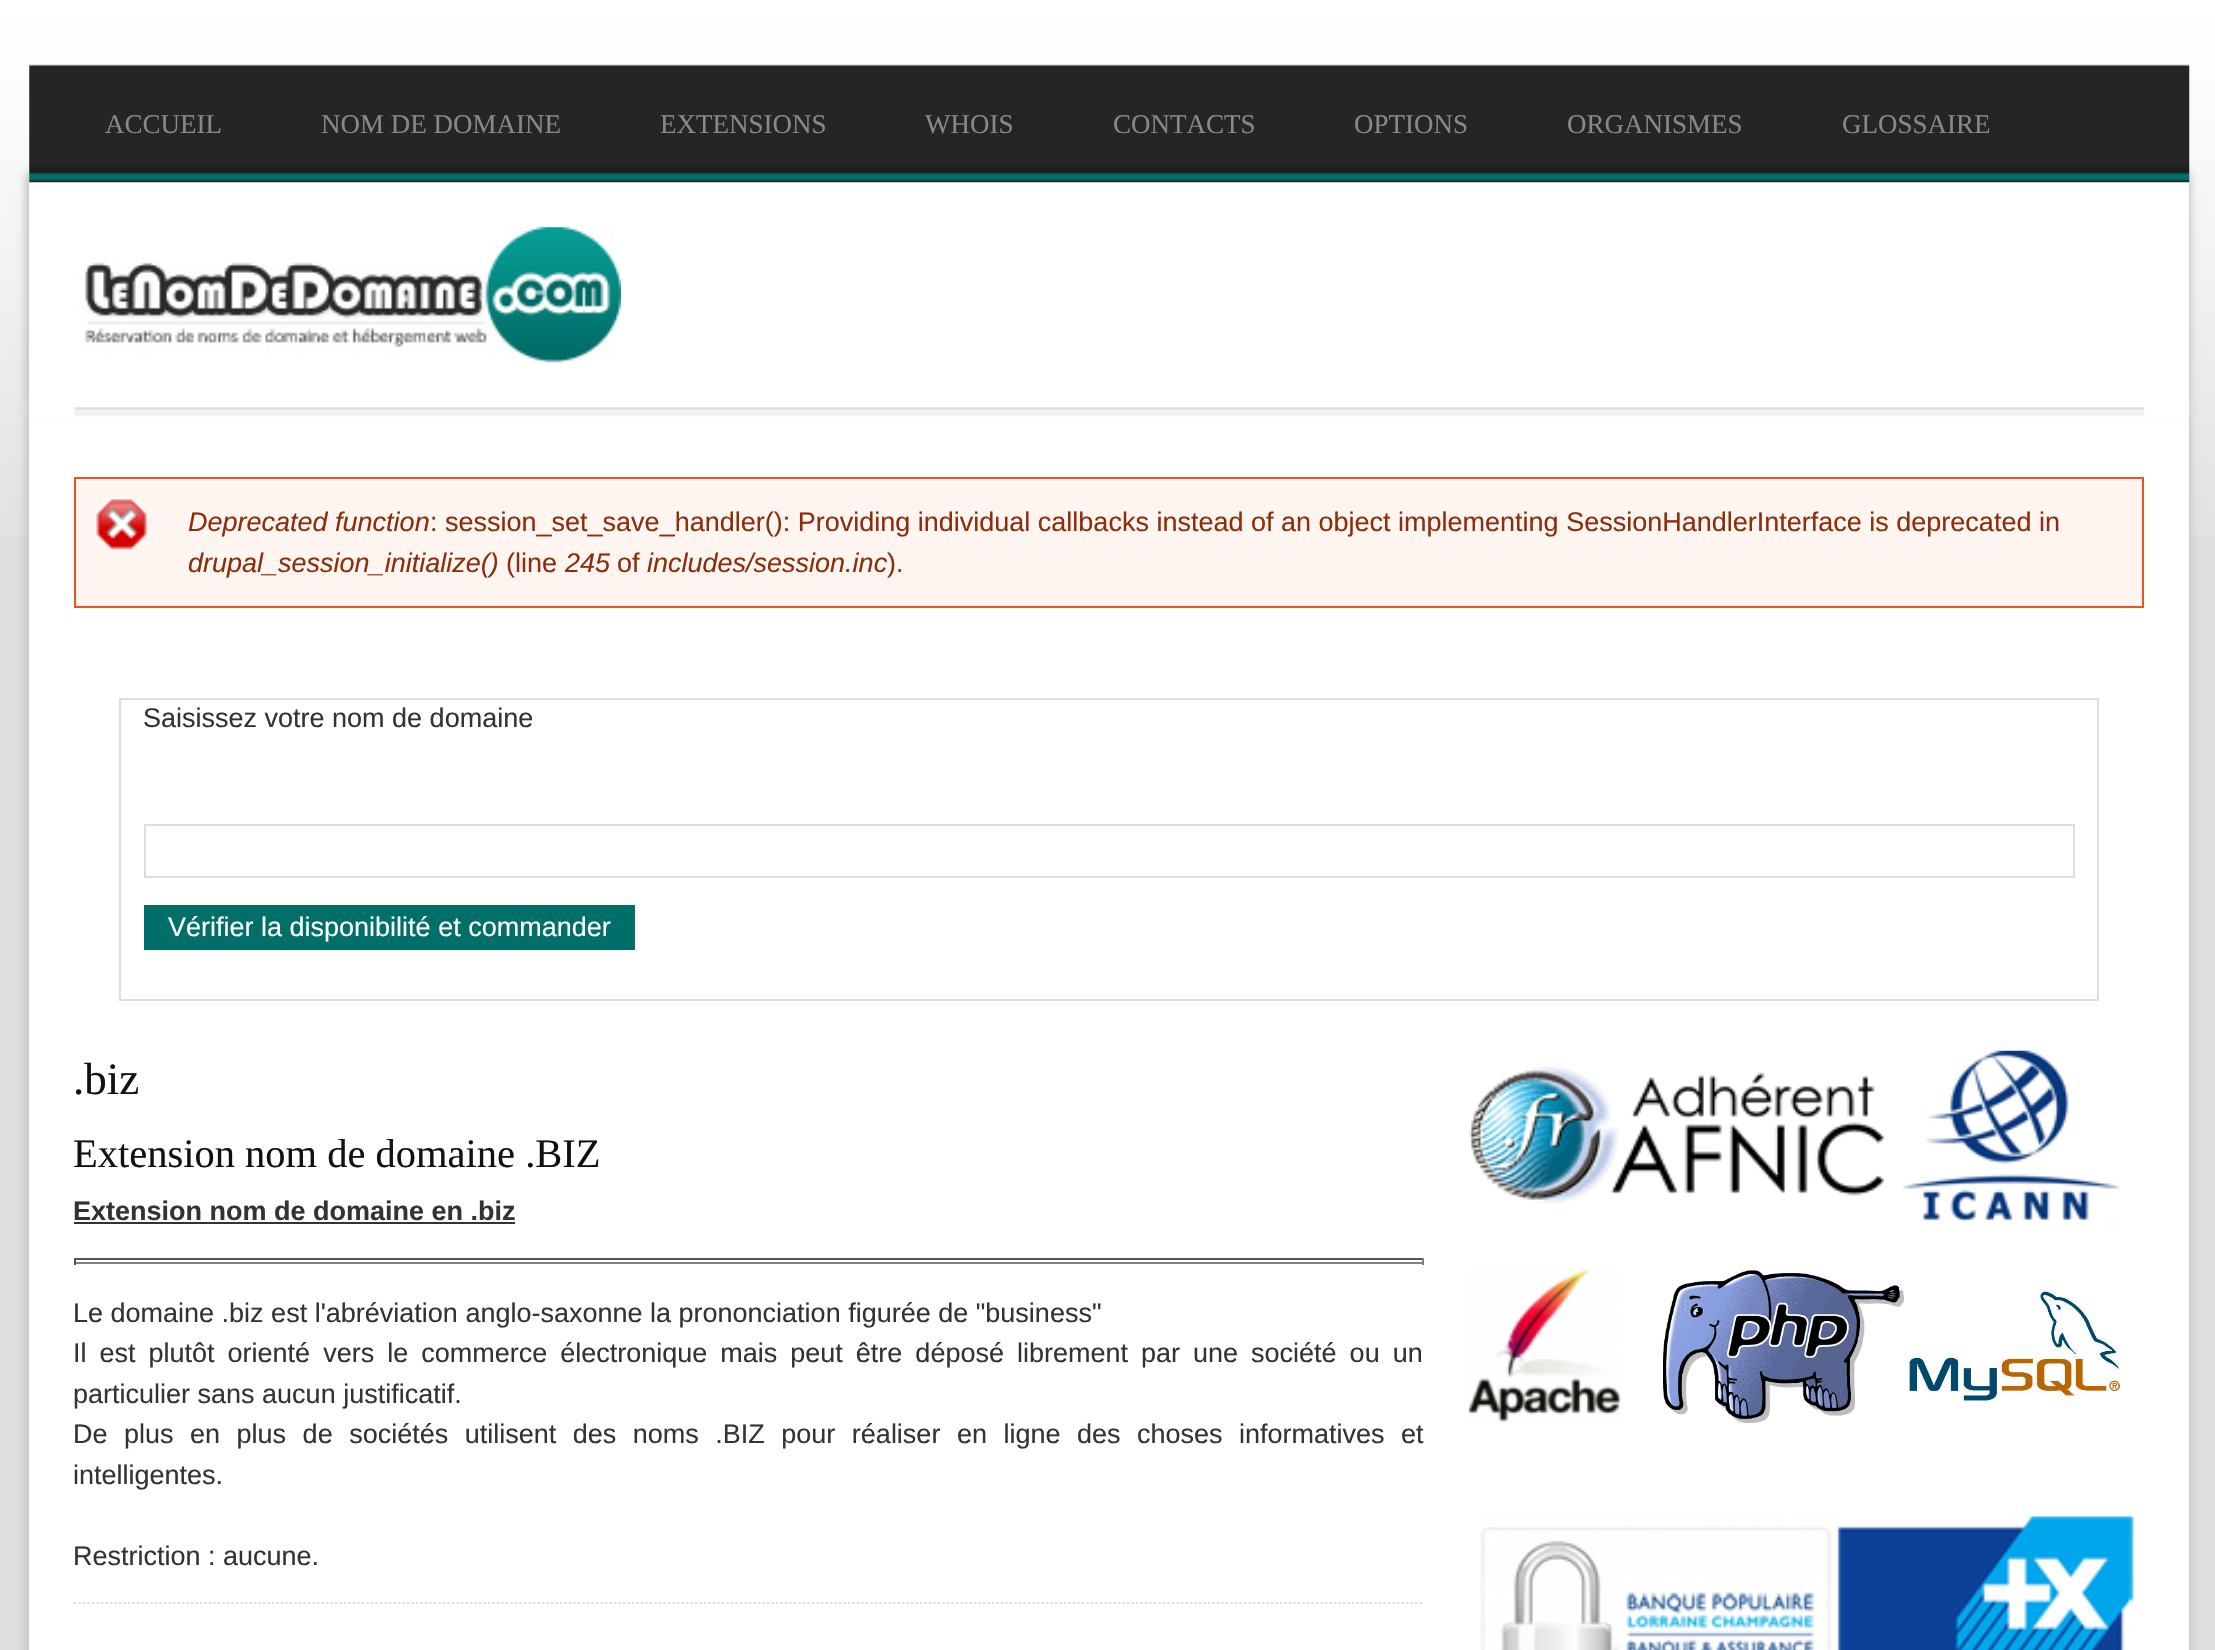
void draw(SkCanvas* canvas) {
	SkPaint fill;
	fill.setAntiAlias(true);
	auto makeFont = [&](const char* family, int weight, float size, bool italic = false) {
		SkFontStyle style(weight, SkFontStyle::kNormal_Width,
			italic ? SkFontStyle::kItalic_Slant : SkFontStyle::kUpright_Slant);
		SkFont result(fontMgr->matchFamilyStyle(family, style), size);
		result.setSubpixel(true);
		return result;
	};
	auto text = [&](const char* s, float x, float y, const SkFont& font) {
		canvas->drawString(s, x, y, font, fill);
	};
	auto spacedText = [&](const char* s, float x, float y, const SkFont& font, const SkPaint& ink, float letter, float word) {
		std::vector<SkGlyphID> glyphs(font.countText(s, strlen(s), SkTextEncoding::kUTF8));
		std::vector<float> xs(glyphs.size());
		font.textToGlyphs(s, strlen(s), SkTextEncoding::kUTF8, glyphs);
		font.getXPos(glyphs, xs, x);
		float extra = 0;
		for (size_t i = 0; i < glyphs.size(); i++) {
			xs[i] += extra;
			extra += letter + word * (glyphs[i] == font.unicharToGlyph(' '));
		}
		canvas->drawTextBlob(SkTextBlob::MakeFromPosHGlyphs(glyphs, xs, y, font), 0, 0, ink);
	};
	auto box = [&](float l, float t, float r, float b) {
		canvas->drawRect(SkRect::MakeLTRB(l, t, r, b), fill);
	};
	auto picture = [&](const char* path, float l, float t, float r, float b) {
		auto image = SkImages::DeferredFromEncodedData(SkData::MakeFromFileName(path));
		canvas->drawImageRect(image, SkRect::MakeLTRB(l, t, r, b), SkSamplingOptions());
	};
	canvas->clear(0xFFDEDEDE);
	picture("image0.png", 0, 0, 2215, 535);
	fill.setColor(0xFFC5C5C5);
	fill.setMaskFilter(SkMaskFilter::MakeBlur(kNormal_SkBlurStyle, 4.5f));
	canvas->drawRect(SkRect::MakeLTRB(27, 410, 2187, 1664), fill);
	fill.setMaskFilter(nullptr);
	fill.setMaskFilter(SkMaskFilter::MakeBlur(kNormal_SkBlurStyle, 4.5f));
	canvas->drawRect(SkRect::MakeLTRB(29, 410, 2189, 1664), fill);
	fill.setMaskFilter(nullptr);
	fill.setColor(0xFFFFFFFF);
	box(29, 416, 2189, 1650);
	fill.setColor(0xFFC5C5C5);
	fill.setMaskFilter(SkMaskFilter::MakeBlur(kNormal_SkBlurStyle, 4.5f));
	canvas->drawRect(SkRect::MakeLTRB(27, 173, 2187, 407), fill);
	fill.setMaskFilter(nullptr);
	fill.setMaskFilter(SkMaskFilter::MakeBlur(kNormal_SkBlurStyle, 4.5f));
	canvas->drawRect(SkRect::MakeLTRB(29, 173, 2189, 407), fill);
	fill.setMaskFilter(nullptr);
	fill.setColor(0xFFFFFFFF);
	box(29, 182, 2189, 416);
	picture("image1.png", 29, 64, 2190, 183);
	picture("image2.png", 74, 407, 2145, 416);
	picture("image3.png", 79, 227, 621, 363);
	fill.setColor(0xFFFEF5F1);
	box(76, 479, 2142, 606);
	picture("image4.png", 94, 497, 149, 551);
	fill.setStyle(SkPaint::kStroke_Style);
	fill.setStrokeWidth(2);
	fill.setColor(0xFFED541D);
	canvas->drawRect(SkRect::MakeLTRB(75, 478, 2143, 607), fill);
	fill.setColor(0xFFDDDDDD);
	canvas->drawRect(SkRect::MakeLTRB(120, 699, 2098, 1000), fill);
	canvas->drawRect(SkRect::MakeLTRB(145, 825, 2074, 877), fill);
	fill.setStyle(SkPaint::kFill_Style);
	fill.setColor(0xFF006F69);
	box(144, 905, 635, 950);
	fill.setColor(0xFF333333);
	box(74, 1222, 515, 1224);
	fill.setColor(0xFF555555);
	box(74, 1258, 1424, 1260);
	fill.setColor(0xFF808080);
	box(1422, 1258, 1424, 1265);
	box(74, 1262, 1424, 1264);
	fill.setColor(0xFF555555);
	box(74, 1258, 76, 1265);
	fill.setStyle(SkPaint::kStroke_Style);
	fill.setStrokeWidth(2.2f);
	fill.setColor(0xFFDDDDDD);
	fill.setPathEffect(SkDashPathEffect::Make({{2.25f, 2.25f}}, 0));
	canvas->drawPath(SkPathBuilder().moveTo(74, 1603).lineTo(1424, 1603).detach(), fill);
	fill.setPathEffect(nullptr);
	picture("image5.png", 1469, 1066, 1884, 1204);
	picture("image6.png", 1903, 1050, 2120, 1226);
	picture("image7.png", 1469, 1268, 1622, 1423);
	picture("image8.png", 1663, 1270, 1904, 1423);
	picture("image9.png", 1906, 1284, 2122, 1403);
	picture("image10.png", 1480, 1516, 2134, 1650);
	auto font1 = makeFont("Liberation Serif", 400, 27);
	fill.setStyle(SkPaint::kFill_Style);
	fill.setColor(0xFF888888);
	text("ACCUEIL", 105, 133, font1);
	text("NOM DE DOMAINE", 321, 133, font1);
	text("EXTENSIONS", 660, 133, font1);
	text("WHOIS", 925, 133, font1);
	text("CONTACTS", 1113, 133, font1);
	text("OPTIONS", 1354, 133, font1);
	text("ORGANISMES", 1567, 133, font1);
	text("GLOSSAIRE", 1842, 133, font1);
	auto font2 = makeFont("Liberation Sans", 400, 27, true);
	fill.setColor(0xFF8C2E0B);
	text("Deprecated function", 188, 531, font2);
	auto font3 = makeFont("Liberation Sans", 400, 27);
	text(": session_set_save_handler(): Providing individual callbacks instead of an object implementing SessionHandlerInterface is deprecated in", 430, 531, font3);
	text("drupal_session_initialize()", 188, 572, font2);
	text("(line", 506, 572, font3);
	text("245", 565, 572, font2);
	text("of", 617, 572, font3);
	text("includes/session.inc", 647, 572, font2);
	text(").", 887, 572, font3);
	fill.setColor(0xFF333333);
	text("Saisissez votre nom de domaine", 143, 727, font3);
	fill.setColor(0xFFFFFFFF);
	text("Vérifier la disponibilité et commander", 168, 936, font3);
	auto font4 = makeFont("Liberation Serif", 400, 45);
	fill.setColor(0xFF111111);
	text(".biz", 73, 1094, font4);
	auto font5 = makeFont("Liberation Serif", 400, 40.5f);
	text("Extension nom de domaine .BIZ", 73, 1167, font5);
	auto font6 = makeFont("Liberation Sans", 700, 27);
	fill.setColor(0xFF333333);
	text("Extension nom de domaine en .biz", 73, 1220, font6);
	text("Le domaine .biz est l'abréviation anglo-saxonne la prononciation figurée de \"business\"", 73, 1322, font3);
	spacedText("Il est plutôt orienté vers le commerce électronique mais peut être déposé librement par une société ou un", 73, 1362, font3, fill, 0, 5.5f);
	text("particulier sans aucun justificatif.", 73, 1403, font3);
	spacedText("De plus en plus de sociétés utilisent des noms .BIZ pour réaliser en ligne des choses informatives et", 73, 1443, font3, fill, 0, 9);
	text("intelligentes.", 73, 1484, font3);
	text("Restriction : aucune.", 73, 1565, font3);
}
